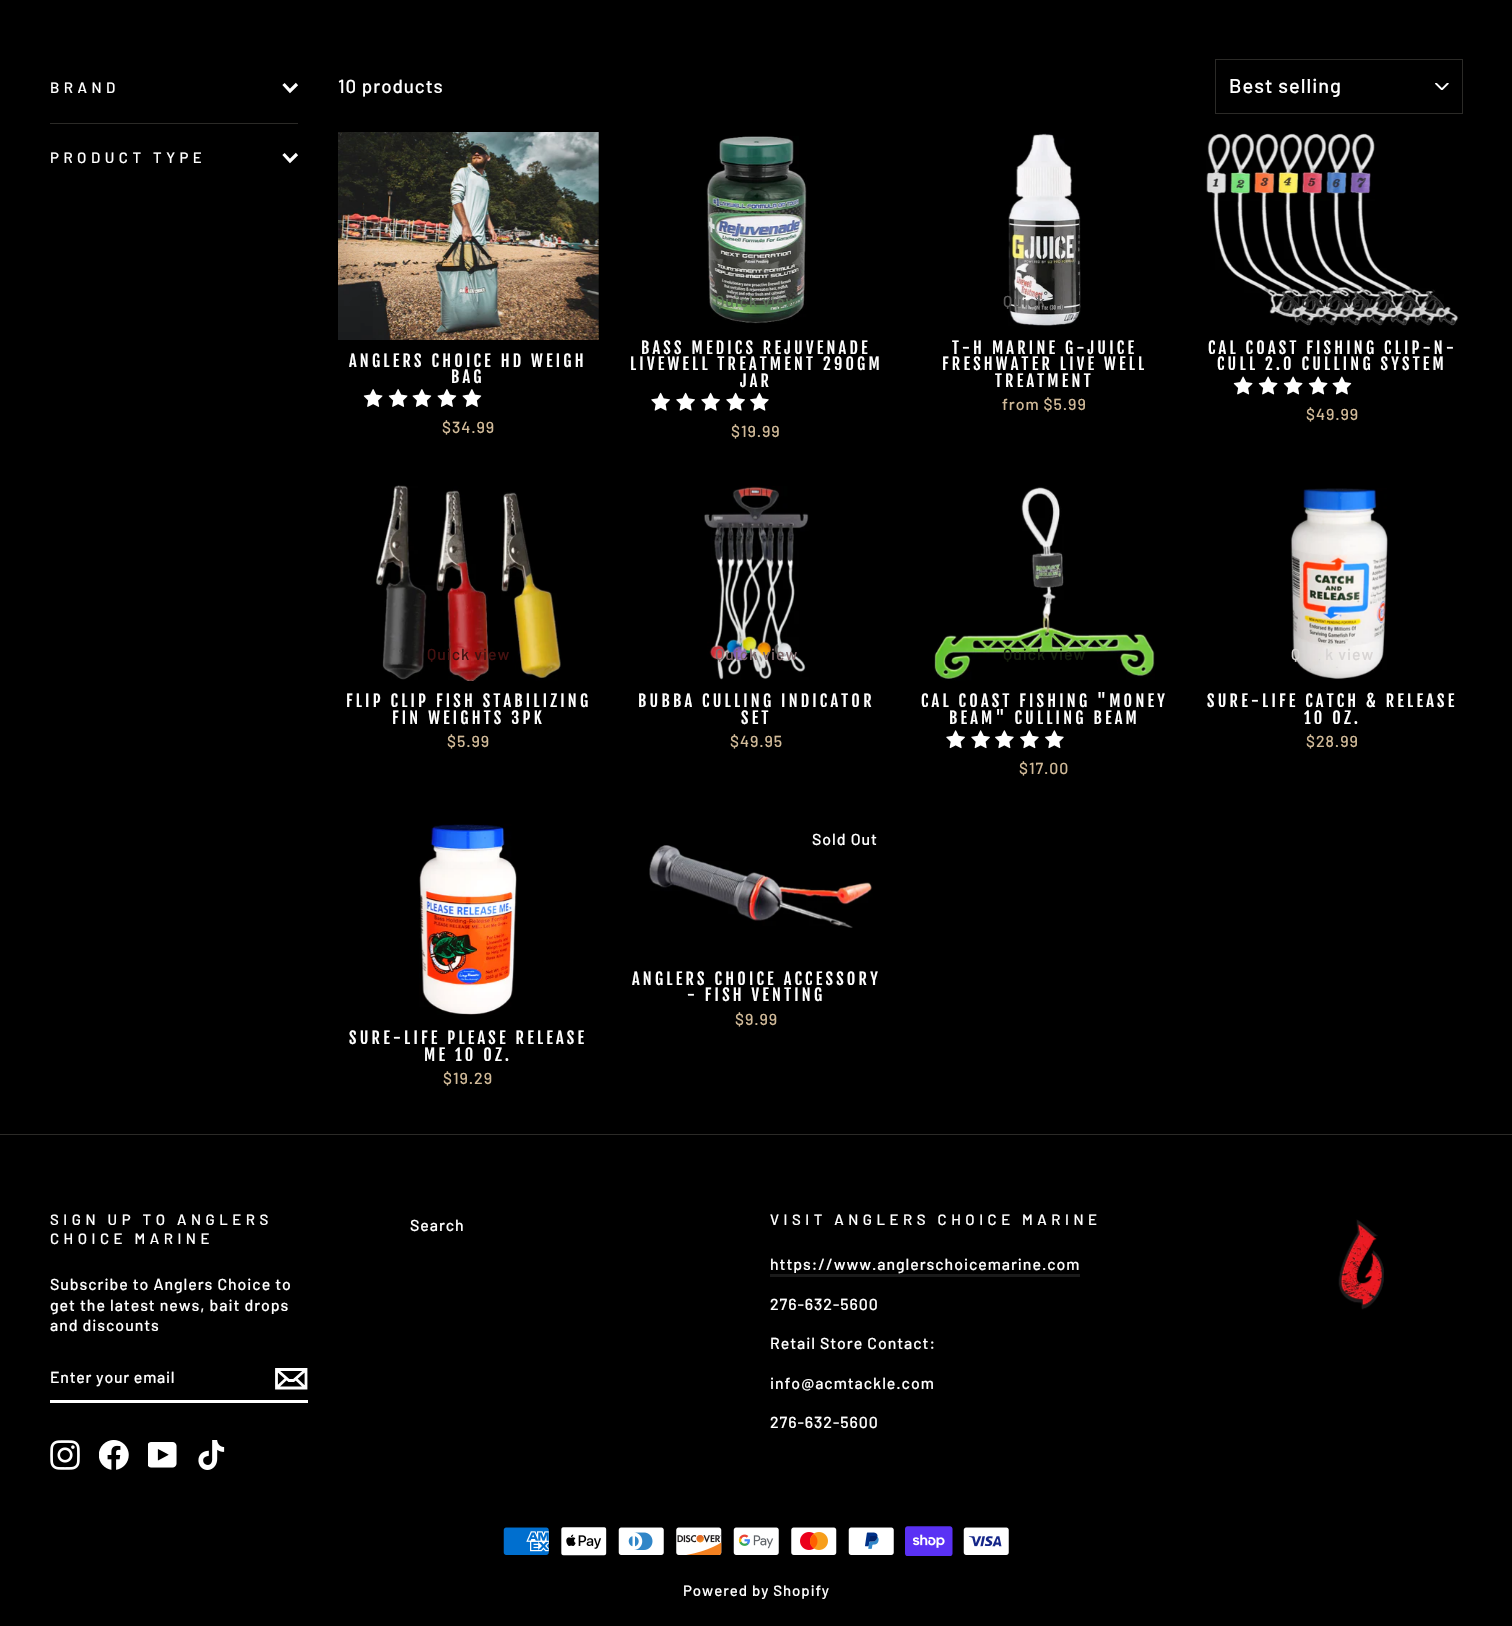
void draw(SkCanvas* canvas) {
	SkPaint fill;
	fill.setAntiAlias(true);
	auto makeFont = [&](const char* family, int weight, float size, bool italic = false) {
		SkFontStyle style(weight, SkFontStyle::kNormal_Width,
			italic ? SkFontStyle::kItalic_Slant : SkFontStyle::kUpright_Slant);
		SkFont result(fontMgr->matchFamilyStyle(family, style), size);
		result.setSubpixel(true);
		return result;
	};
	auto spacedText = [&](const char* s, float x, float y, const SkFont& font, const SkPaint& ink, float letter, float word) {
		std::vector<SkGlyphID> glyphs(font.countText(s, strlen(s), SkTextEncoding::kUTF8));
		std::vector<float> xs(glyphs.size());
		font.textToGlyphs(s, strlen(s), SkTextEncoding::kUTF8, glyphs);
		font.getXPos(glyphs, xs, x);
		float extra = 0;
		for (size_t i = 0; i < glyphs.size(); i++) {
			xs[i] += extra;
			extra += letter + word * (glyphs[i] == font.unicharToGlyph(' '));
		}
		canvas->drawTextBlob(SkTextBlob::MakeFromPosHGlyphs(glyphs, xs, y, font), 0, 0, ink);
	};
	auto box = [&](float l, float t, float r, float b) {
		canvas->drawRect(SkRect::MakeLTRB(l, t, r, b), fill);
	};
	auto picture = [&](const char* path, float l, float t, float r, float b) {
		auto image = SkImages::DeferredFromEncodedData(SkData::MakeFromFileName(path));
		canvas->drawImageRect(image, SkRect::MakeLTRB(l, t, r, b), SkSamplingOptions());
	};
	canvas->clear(0xFF000000);
	fill.setStyle(SkPaint::kStroke_Style);
	fill.setStrokeWidth(3.2f);
	fill.setColor(0xFFFFFFFF);
	canvas->drawPath(SkPathBuilder().moveTo(283.5f, 84).lineTo(290, 91).lineTo(297, 84).detach(), fill);
	fill.setStyle(SkPaint::kFill_Style);
	fill.setColor(0xFF2B2A27);
	box(50, 123, 298, 124);
	fill.setStyle(SkPaint::kStroke_Style);
	fill.setColor(0xFFFFFFFF);
	canvas->drawPath(SkPathBuilder().moveTo(283.5f, 154).lineTo(290, 161).lineTo(297, 154).detach(), fill);
	picture("image0.png", 1435, 83, 1449, 90);
	fill.setStrokeWidth(1);
	fill.setColor(0xFF2B2A27);
	canvas->drawRect(SkRect::MakeLTRB(1215.5f, 59.5f, 1462.5f, 113.5f), fill);
	picture("image1.png", 338, 132, 599, 340);
	picture("image2.png", 363, 389, 383, 407);
	picture("image2.png", 388, 389, 408, 407);
	picture("image3.png", 412, 389, 432, 407);
	picture("image3.png", 437, 389, 457, 407);
	picture("image3.png", 462, 389, 482, 407);
	picture("image4.png", 706, 136, 807, 324);
	picture("image5.png", 651, 392, 670, 411);
	picture("image5.png", 676, 392, 695, 411);
	picture("image5.png", 701, 392, 720, 411);
	picture("image5.png", 726, 392, 745, 411);
	picture("image6.png", 750, 392, 769, 411);
	picture("image7.png", 1008, 132, 1081, 326);
	picture("image8.png", 1206, 133, 1459, 326);
	picture("image9.png", 1233, 376, 1253, 395);
	picture("image9.png", 1258, 376, 1278, 395);
	picture("image9.png", 1283, 376, 1303, 395);
	picture("image9.png", 1308, 376, 1328, 395);
	picture("image10.png", 1332, 376, 1352, 395);
	picture("image11.png", 375, 485, 561, 681);
	picture("image12.png", 704, 486, 809, 680);
	picture("image13.png", 934, 486, 1155, 681);
	picture("image14.png", 946, 730, 965, 749);
	picture("image14.png", 971, 730, 990, 749);
	picture("image15.png", 995, 730, 1014, 749);
	picture("image15.png", 1020, 730, 1039, 749);
	picture("image15.png", 1045, 730, 1064, 749);
	picture("image16.png", 1290, 488, 1388, 679);
	picture("image17.png", 649, 845, 873, 928);
	picture("image18.png", 419, 824, 517, 1015);
	fill.setStyle(SkPaint::kFill_Style);
	box(0, 1134, 1512, 1135);
	fill.setColor(0xFFFFFFFF);
	box(50, 1400, 308, 1403);
	fill.setStyle(SkPaint::kStroke_Style);
	fill.setStrokeWidth(2.8f);
	canvas->drawPath(SkPathBuilder().moveTo(306, 1388).lineTo(276.5f, 1388).lineTo(276.5f, 1369.5f).lineTo(306, 1369.5f).close().moveTo(276.5f, 1369.5f).lineTo(289, 1380.5f).lineTo(293.5f, 1380.5f).lineTo(306, 1369.5f).moveTo(286.5f, 1378.5f).lineTo(277, 1387.5f).moveTo(305.5f, 1388).lineTo(295.5f, 1378.5f).detach(), fill);
	picture("image19.png", 50, 1440, 80, 1470);
	picture("image20.png", 99, 1440, 129, 1470);
	picture("image21.png", 148, 1442, 177, 1468);
	picture("image22.png", 198, 1440, 225, 1470);
	fill.setStyle(SkPaint::kFill_Style);
	fill.setColor(0xFF1A1A1A);
	box(770, 1274, 1080, 1277);
	picture("image23.png", 1338, 1219, 1384, 1310);
	picture("image24.png", 503, 1527, 549, 1555);
	picture("image25.png", 561, 1527, 607, 1556);
	picture("image26.png", 618, 1527, 664, 1555);
	picture("image27.png", 676, 1527, 722, 1555);
	picture("image28.png", 733, 1527, 779, 1555);
	picture("image29.png", 791, 1527, 837, 1555);
	picture("image30.png", 848, 1527, 894, 1555);
	picture("image31.png", 905, 1526, 953, 1556);
	picture("image32.png", 963, 1527, 1009, 1555);
	auto font1 = makeFont("Barlow", 500, 15);
	fill.setColor(0xFFFFFFFF);
	spacedText("BRAND", 50, 93, font1, fill, 4.5f, 0);
	spacedText("PRODUCT TYPE", 50, 163, font1, fill, 4.5f, 0);
	auto font2 = makeFont("Barlow", 500, 18.75f);
	spacedText("10 products", 338, 93, font2, fill, 0.95f, 0);
	auto font3 = makeFont("Barlow", 500, 20);
	spacedText("Best selling", 1229, 93, font3, fill, 1, 0);
	auto font4 = makeFont("Fjalla One", 400, 16.25f);
	spacedText("ANGLERS CHOICE HD WEIGH", 349, 367, font4, fill, 3.25f, 0);
	spacedText("BAG", 451, 383, font4, fill, 3.25f, 0);
	auto font5 = makeFont("Barlow", 500, 15.9f);
	fill.setColor(0xFFD1BA98);
	spacedText("$34.99", 442, 433, font5, fill, 0.95f, 0);
	fill.setColor(0xFF5C7159);
	spacedText("Quick view", 715, 307, font5, fill, 0.95f, 0);
	fill.setColor(0xFFFFFFFF);
	spacedText("BASS MEDICS REJUVENADE", 641, 354, font4, fill, 3.25f, 0);
	spacedText("LIVEWELL TREATMENT 290GM", 630, 370, font4, fill, 3.25f, 0);
	spacedText("JAR", 740, 387, font4, fill, 3.25f, 0);
	fill.setColor(0xFFD1BA98);
	spacedText("$19.99", 731, 437, font5, fill, 0.95f, 0);
	fill.setColor(0xFF5C5B5B);
	spacedText("Quick", 1003, 307, font5, fill, 0.95f, 0);
	fill.setColor(0xFFFFFFFF);
	spacedText("T-H MARINE G-JUICE", 952, 354, font4, fill, 3.25f, 0);
	spacedText("FRESHWATER LIVE WELL", 942, 370, font4, fill, 3.25f, 0);
	spacedText("TREATMENT", 995, 387, font4, fill, 3.25f, 0);
	fill.setColor(0xFFD1BA98);
	spacedText("from $5.99", 1002, 410, font5, fill, 0.95f, 0);
	fill.setColor(0xFF2A2A2A);
	spacedText("Quick view", 1291, 307, font5, fill, 0.95f, 0);
	fill.setColor(0xFFFFFFFF);
	spacedText("CAL COAST FISHING CLIP-N-", 1208, 354, font4, fill, 3.25f, 0);
	spacedText("CULL 2.0 CULLING SYSTEM", 1217, 370, font4, fill, 3.25f, 0);
	fill.setColor(0xFFD1BA98);
	spacedText("$49.99", 1306, 420, font5, fill, 0.95f, 0);
	fill.setColor(0xFF441110);
	spacedText("Quick view", 427, 660, font5, fill, 0.95f, 0);
	fill.setColor(0xFFFFFFFF);
	spacedText("FLIP CLIP FISH STABILIZING", 346, 707, font4, fill, 3.25f, 0);
	spacedText("FIN WEIGHTS 3PK", 392, 724, font4, fill, 3.25f, 0);
	fill.setColor(0xFFD1BA98);
	spacedText("$5.99", 447, 747, font5, fill, 0.95f, 0);
	fill.setColor(0xFF806A6D);
	spacedText("Quick view", 715, 660, font5, fill, 0.95f, 0);
	fill.setColor(0xFFFFFFFF);
	spacedText("BUBBA CULLING INDICATOR", 638, 707, font4, fill, 3.25f, 0);
	spacedText("SET", 741, 724, font4, fill, 3.25f, 0);
	fill.setColor(0xFFD1BA98);
	spacedText("$49.95", 730, 747, font5, fill, 0.95f, 0);
	fill.setColor(0xFF16210E);
	spacedText("Quick view", 1003, 660, font5, fill, 0.95f, 0);
	fill.setColor(0xFFFFFFFF);
	spacedText("CAL COAST FISHING \"MONEY", 921, 707, font4, fill, 3.25f, 0);
	spacedText("BEAM\" CULLING BEAM", 949, 724, font4, fill, 3.25f, 0);
	fill.setColor(0xFFD1BA98);
	spacedText("$17.00", 1019, 774, font5, fill, 0.95f, 0);
	fill.setColor(0xFFD8D5D4);
	spacedText("Q", 1291, 660, font5, fill, 0.95f, 0);
	spacedText("k view", 1325, 660, font5, fill, 0.95f, 0);
	fill.setColor(0xFFFFFFFF);
	spacedText("SURE-LIFE CATCH & RELEASE", 1207, 707, font4, fill, 3.25f, 0);
	spacedText("10 OZ.", 1304, 724, font4, fill, 3.25f, 0);
	fill.setColor(0xFFD1BA98);
	spacedText("$28.99", 1306, 747, font5, fill, 0.95f, 0);
	fill.setColor(0xFFFFFFFF);
	spacedText("Sold Out", 812, 845, font5, fill, 0.95f, 0);
	spacedText("ANGLERS CHOICE ACCESSORY", 632, 985, font4, fill, 3.25f, 0);
	spacedText("- FISH VENTING", 687, 1001, font4, fill, 3.25f, 0);
	fill.setColor(0xFFD1BA98);
	spacedText("$9.99", 735, 1025, font5, fill, 0.95f, 0);
	fill.setColor(0xFFFFFFFF);
	spacedText("SURE-LIFE PLEASE RELEASE", 349, 1044, font4, fill, 3.25f, 0);
	spacedText("ME 10 OZ.", 424, 1061, font4, fill, 3.25f, 0);
	fill.setColor(0xFFD1BA98);
	spacedText("$19.29", 443, 1084, font5, fill, 0.95f, 0);
	fill.setColor(0xFFFFFFFF);
	spacedText("SIGN UP TO ANGLERS", 50, 1225, font1, fill, 4.5f, 0);
	spacedText("CHOICE MARINE", 50, 1244, font1, fill, 4.5f, 0);
	spacedText("Subscribe to Anglers Choice to", 50, 1290, font5, fill, 0.95f, 0);
	spacedText("get the latest news, bait drops", 50, 1311, font5, fill, 0.95f, 0);
	spacedText("and discounts", 50, 1331, font5, fill, 0.95f, 0);
	spacedText("Enter your email", 50, 1383, font5, fill, 0.75f, 0);
	spacedText("Search", 410, 1231, font5, fill, 0.95f, 0);
	spacedText("VISIT ANGLERS CHOICE MARINE", 770, 1225, font1, fill, 4.5f, 0);
	spacedText("https://www.anglerschoicemarine.com", 770, 1270, font5, fill, 0.95f, 0);
	spacedText("276-632-5600", 770, 1310, font5, fill, 0.95f, 0);
	spacedText("Retail Store Contact:", 770, 1349, font5, fill, 0.95f, 0);
	spacedText("info@acmtackle.com", 770, 1389, font5, fill, 0.95f, 0);
	spacedText("276-632-5600", 770, 1428, font5, fill, 0.95f, 0);
	spacedText("Powered by Shopify", 683, 1596, font1, fill, 0.95f, 0);
}
